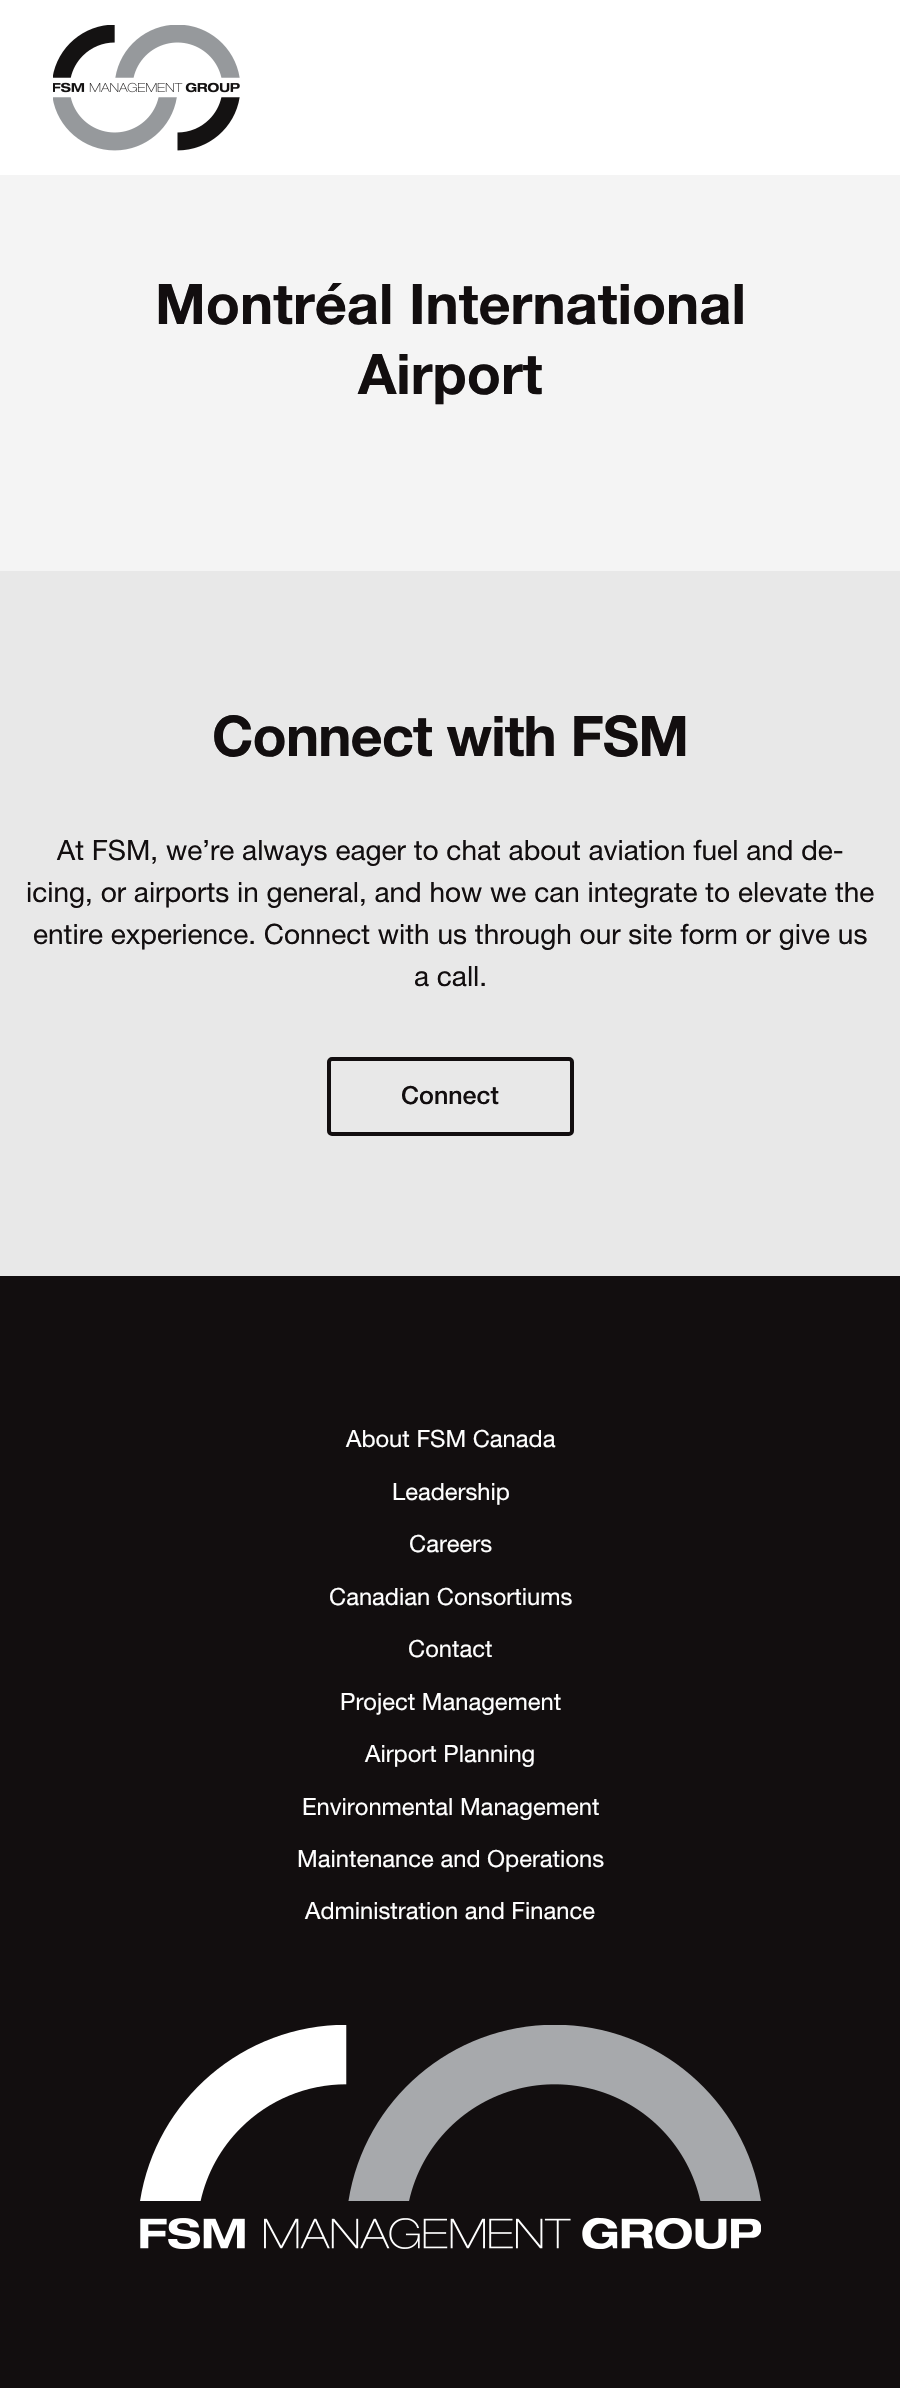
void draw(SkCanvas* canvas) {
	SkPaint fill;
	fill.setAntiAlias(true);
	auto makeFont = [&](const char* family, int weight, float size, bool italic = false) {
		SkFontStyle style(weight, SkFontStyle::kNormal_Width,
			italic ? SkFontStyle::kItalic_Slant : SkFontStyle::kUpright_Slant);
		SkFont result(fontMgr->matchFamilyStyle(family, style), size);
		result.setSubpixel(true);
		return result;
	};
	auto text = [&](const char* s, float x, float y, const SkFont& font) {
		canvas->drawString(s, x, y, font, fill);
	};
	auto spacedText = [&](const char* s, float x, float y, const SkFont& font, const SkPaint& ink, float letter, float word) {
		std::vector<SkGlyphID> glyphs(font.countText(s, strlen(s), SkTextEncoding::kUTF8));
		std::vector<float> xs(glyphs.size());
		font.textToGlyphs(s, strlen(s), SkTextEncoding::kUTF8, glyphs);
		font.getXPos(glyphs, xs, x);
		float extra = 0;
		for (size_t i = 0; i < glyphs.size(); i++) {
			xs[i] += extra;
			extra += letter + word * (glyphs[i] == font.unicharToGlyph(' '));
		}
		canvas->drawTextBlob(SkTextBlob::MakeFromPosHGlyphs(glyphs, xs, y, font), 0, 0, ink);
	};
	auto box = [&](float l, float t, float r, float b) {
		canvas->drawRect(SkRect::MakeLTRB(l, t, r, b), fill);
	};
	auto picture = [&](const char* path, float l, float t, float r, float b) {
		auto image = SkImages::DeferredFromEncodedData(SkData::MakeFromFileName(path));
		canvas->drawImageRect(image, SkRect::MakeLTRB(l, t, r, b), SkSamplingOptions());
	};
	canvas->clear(0xFFF4F4F4);
	fill.setColor(0xFFFFFFFF);
	box(0, 0, 900, 175);
	picture("image0.png", 53, 25, 240, 151);
	fill.setColor(0xFFE8E8E8);
	box(0, 571, 900, 1276);
	fill.setStyle(SkPaint::kStroke_Style);
	fill.setStrokeWidth(4);
	fill.setColor(0xFF120E0F);
	canvas->drawRoundRect(SkRect::MakeLTRB(329, 1059, 572, 1134), 3, 3, fill);
	fill.setStyle(SkPaint::kFill_Style);
	box(0, 1276, 900, 2388);
	picture("image1.png", 140, 2025, 761, 2249);
	auto font1 = makeFont("Helvetica Neue", 700, 56);
	text("Montréal International", 155, 324, font1);
	text("Airport", 358, 394, font1);
	spacedText("Connect with FSM", 212, 756, font1, fill, -0.9f, 0);
	auto font2 = makeFont("Helvetica Neue", 400, 28);
	text("At FSM, we’re always eager to chat about aviation fuel and de-", 57, 860, font2);
	text("icing, or airports in general, and how we can integrate to elevate the", 26, 902, font2);
	text("entire experience. Connect with us through our site form or give us", 33, 944, font2);
	text("a call.", 414, 986, font2);
	auto font3 = makeFont("Helvetica Neue", 500, 25);
	text("Connect", 401, 1104, font3);
	auto font4 = makeFont("Helvetica Neue", 400, 23.75f);
	fill.setColor(0xFFFFFFFF);
	text("About FSM Canada", 346, 1447, font4);
	text("Leadership", 392, 1500, font4);
	text("Careers", 409, 1552, font4);
	text("Canadian Consortiums", 329, 1605, font4);
	text("Contact", 408, 1657, font4);
	text("Project Management", 340, 1710, font4);
	text("Airport Planning", 365, 1762, font4);
	text("Environmental Management", 302, 1815, font4);
	text("Maintenance and Operations", 297, 1867, font4);
	text("Administration and Finance", 305, 1919, font4);
}
